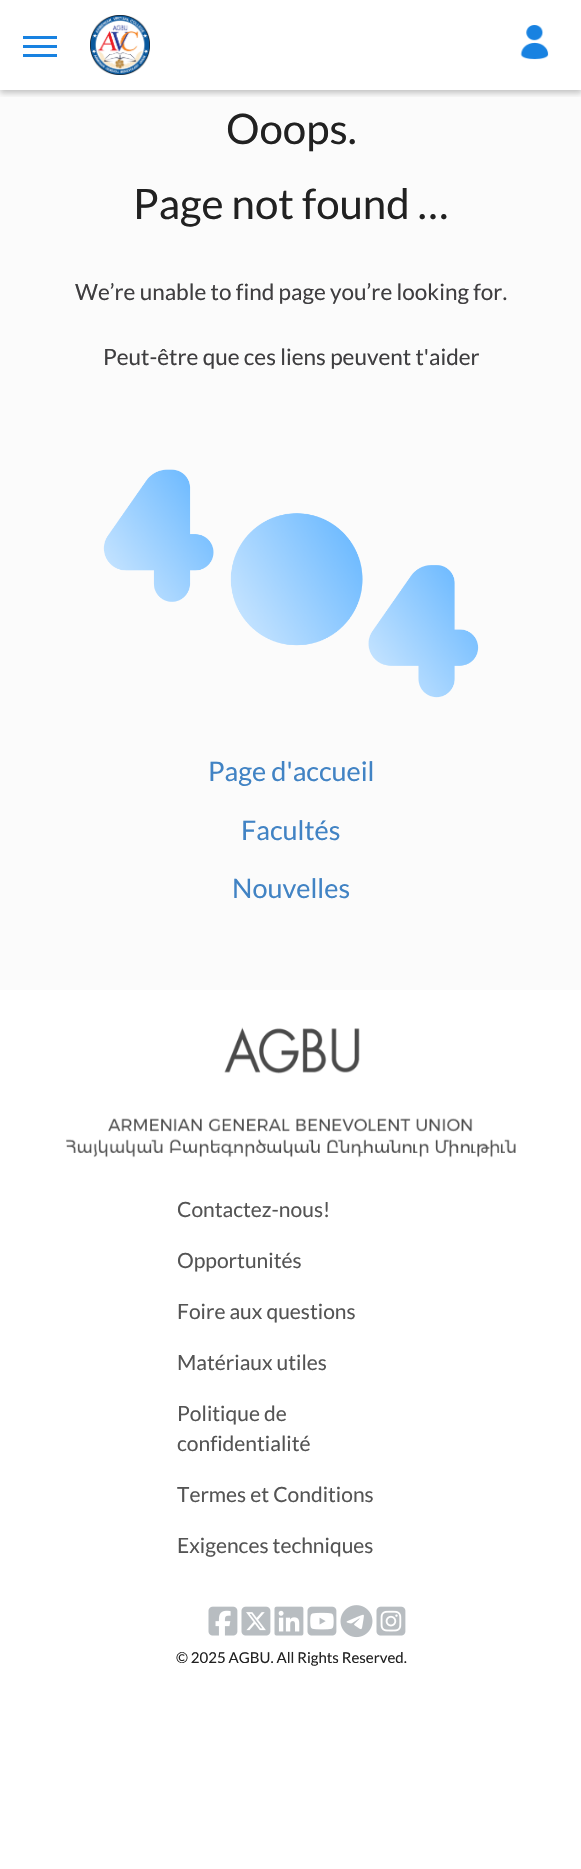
void draw(SkCanvas* canvas) {
	SkPaint fill;
	fill.setAntiAlias(true);
	auto makeFont = [&](const char* family, int weight, float size, bool italic = false) {
		SkFontStyle style(weight, SkFontStyle::kNormal_Width,
			italic ? SkFontStyle::kItalic_Slant : SkFontStyle::kUpright_Slant);
		SkFont result(fontMgr->matchFamilyStyle(family, style), size);
		result.setSubpixel(true);
		return result;
	};
	auto text = [&](const char* s, float x, float y, const SkFont& font) {
		canvas->drawString(s, x, y, font, fill);
	};
	auto box = [&](float l, float t, float r, float b) {
		canvas->drawRect(SkRect::MakeLTRB(l, t, r, b), fill);
	};
	auto picture = [&](const char* path, float l, float t, float r, float b) {
		auto image = SkImages::DeferredFromEncodedData(SkData::MakeFromFileName(path));
		canvas->drawImageRect(image, SkRect::MakeLTRB(l, t, r, b), SkSamplingOptions());
	};
	canvas->clear(0xFFFFFFFF);
	fill.setColor(0xFFFBFBFB);
	box(0, 90, 581, 990);
	canvas->save();
	canvas->clipRect(SkRect::MakeLTRB(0, 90, 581, 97));
	fill.setColor(0x3B000000);
	fill.setMaskFilter(SkMaskFilter::MakeBlur(kNormal_SkBlurStyle, 3));
	canvas->drawRect(SkRect::MakeLTRB(0, 3, 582, 93), fill);
	fill.setMaskFilter(nullptr);
	canvas->restore();
	fill.setColor(0xFF1882E1);
	box(23, 36, 57, 39);
	box(23, 45, 57, 48);
	box(23, 54, 57, 57);
	picture("image0.png", 90, 15, 150, 75);
	picture("image1.png", 520, 25, 549, 60);
	picture("image2.png", 103, 469, 479, 698);
	picture("image3.png", 66, 1027, 516, 1158);
	picture("image4.png", 208, 1606, 238, 1636);
	picture("image5.png", 241, 1606, 271, 1636);
	picture("image6.png", 274, 1606, 304, 1636);
	picture("image7.png", 307, 1606, 337, 1636);
	picture("image8.png", 340, 1605, 373, 1638);
	picture("image9.png", 376, 1606, 406, 1636);
	auto font1 = makeFont("Lato", 400, 42);
	fill.setColor(0xFF212121);
	text("Ooops.", 226, 144, font1);
	text("Page not found …", 133, 219, font1);
	auto font2 = makeFont("Lato", 400, 22.5f);
	fill.setColor(0xFF3F3E40);
	text("We’re unable to find page you’re looking for.", 75, 300, font2);
	text("Peut-être que ces liens peuvent t'aider", 103, 365, font2);
	auto font3 = makeFont("Lato", 400, 27);
	fill.setColor(0xFF4183C4);
	text("Page d'accueil", 208, 781, font3);
	text("Facultés", 241, 840, font3);
	text("Nouvelles", 232, 898, font3);
	auto font4 = makeFont("Lato", 400, 21);
	fill.setColor(0xFF545454);
	text("Contactez-nous!", 177, 1217, font4);
	text("Opportunités", 177, 1268, font4);
	text("Foire aux questions", 177, 1319, font4);
	text("Matériaux utiles", 177, 1370, font4);
	text("Politique de", 177, 1421, font4);
	text("confidentialité", 177, 1451, font4);
	text("Termes et Conditions", 177, 1502, font4);
	text("Exigences techniques", 177, 1553, font4);
	auto font5 = makeFont("Lato", 400, 15);
	fill.setColor(0xFF212121);
	text("© 2025 AGBU. All Rights Reserved.", 176, 1663, font5);
}
